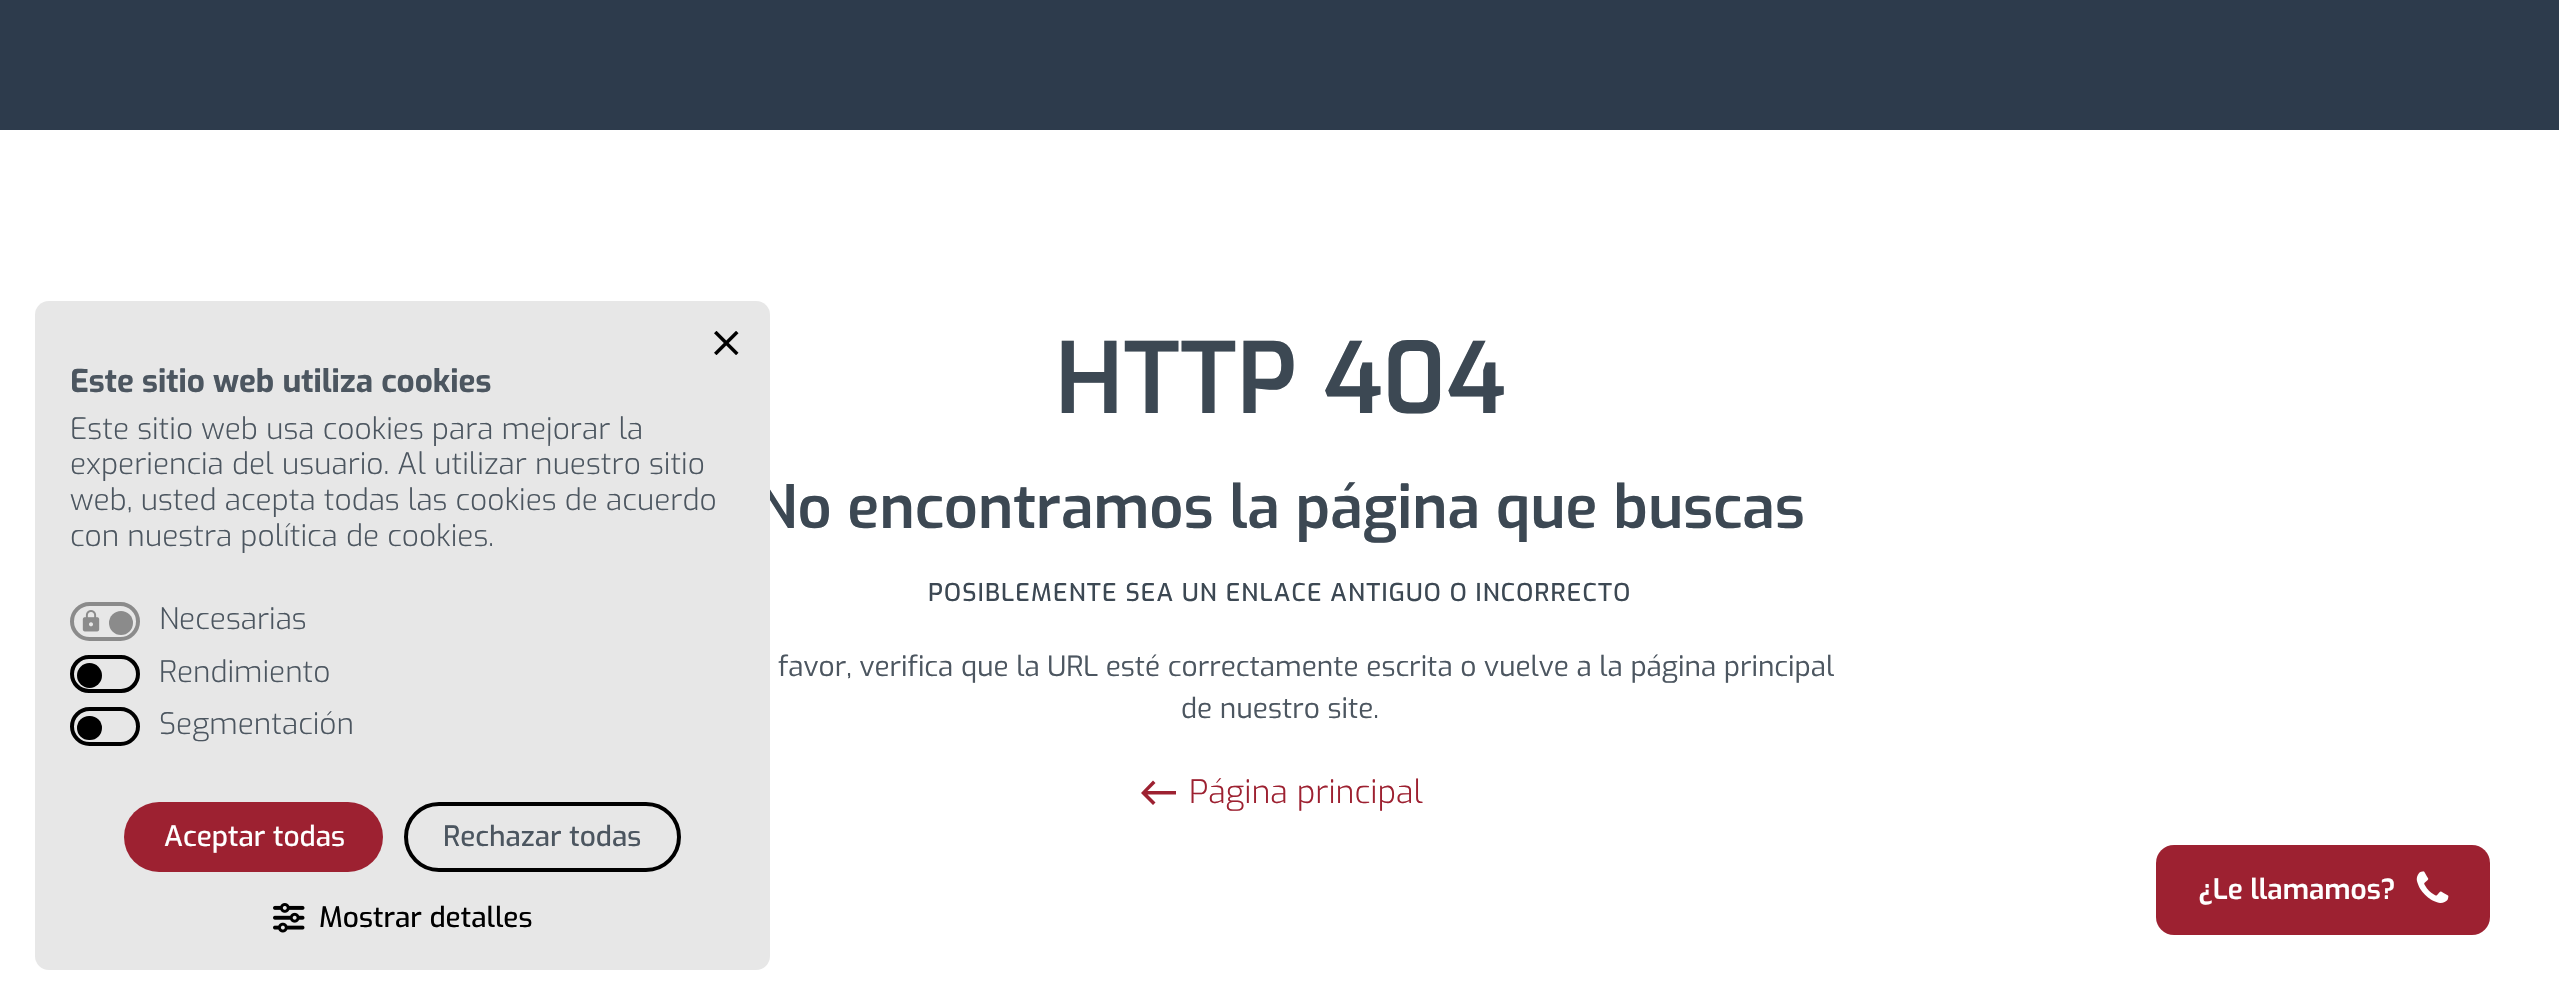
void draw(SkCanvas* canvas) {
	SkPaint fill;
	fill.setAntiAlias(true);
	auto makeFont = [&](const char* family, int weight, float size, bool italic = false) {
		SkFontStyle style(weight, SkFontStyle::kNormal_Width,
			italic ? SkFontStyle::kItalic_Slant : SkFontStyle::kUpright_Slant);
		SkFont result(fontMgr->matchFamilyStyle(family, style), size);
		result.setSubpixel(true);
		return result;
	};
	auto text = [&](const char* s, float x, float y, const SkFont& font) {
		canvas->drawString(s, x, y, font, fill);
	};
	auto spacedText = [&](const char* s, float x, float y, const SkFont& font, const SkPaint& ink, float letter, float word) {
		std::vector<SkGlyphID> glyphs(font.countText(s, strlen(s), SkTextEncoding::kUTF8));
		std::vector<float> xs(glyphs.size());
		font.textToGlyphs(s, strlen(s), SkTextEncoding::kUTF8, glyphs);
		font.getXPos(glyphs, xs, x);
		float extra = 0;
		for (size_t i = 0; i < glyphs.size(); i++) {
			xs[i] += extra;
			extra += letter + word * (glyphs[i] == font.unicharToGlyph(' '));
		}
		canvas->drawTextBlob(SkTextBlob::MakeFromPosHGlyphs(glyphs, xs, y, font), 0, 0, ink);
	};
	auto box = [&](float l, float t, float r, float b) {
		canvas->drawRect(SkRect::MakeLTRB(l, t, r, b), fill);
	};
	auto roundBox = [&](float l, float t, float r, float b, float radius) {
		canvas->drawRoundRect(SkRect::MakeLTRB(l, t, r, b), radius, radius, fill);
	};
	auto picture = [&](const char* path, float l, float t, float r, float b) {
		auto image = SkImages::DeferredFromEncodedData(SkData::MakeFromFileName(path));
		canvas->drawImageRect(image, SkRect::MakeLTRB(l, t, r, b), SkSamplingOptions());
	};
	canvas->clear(0xFF2D3B4C);
	fill.setColor(0xFFFFFFFF);
	box(0, 130, 2559, 1003);
	fill.setColor(0xFF9D2131);
	canvas->drawPath(SkPathBuilder().moveTo(1153, 805).lineTo(1155.5f, 802.5f).lineTo(1147.5f, 794.5f).lineTo(1176, 794.5f).lineTo(1176, 791).lineTo(1147.5f, 791).lineTo(1155.5f, 783).lineTo(1153, 780.5f).lineTo(1141, 793).close().detach(), fill);
	roundBox(2156, 845, 2490, 935, 18);
	picture("image3.png", 2416, 871, 2449, 903);
	auto font1 = makeFont("Exo", 600, 98);
	fill.setColor(0xFF3C4853);
	text("HTTP 404", 1055, 413, font1);
	auto font2 = makeFont("Exo", 600, 59.5f);
	text("No encontramos la página que buscas", 756, 528, font2);
	fill.setColor(0xFFE7E7E7);
	roundBox(35, 301, 770, 970, 14);
	fill.setStyle(SkPaint::kStroke_Style);
	fill.setStrokeWidth(4);
	fill.setColor(0xFF000000);
	canvas->drawRoundRect(SkRect::MakeLTRB(72, 709, 138, 744), 17.5f, 17.5f, fill);
	fill.setStyle(SkPaint::kFill_Style);
	roundBox(77, 716, 102, 740, 12);
	auto font3 = makeFont("Exo", 300, 29.75f);
	fill.setColor(0xFF4C5660);
	text("Segmentación", 159, 734, font3);
	fill.setStyle(SkPaint::kStroke_Style);
	fill.setColor(0xFF000000);
	canvas->drawRoundRect(SkRect::MakeLTRB(72, 657, 138, 691), 17, 17, fill);
	fill.setStyle(SkPaint::kFill_Style);
	canvas->drawCircle(89.5f, 675.5f, 12.5f, fill);
	fill.setColor(0xFF4C5660);
	text("Rendimiento", 159, 682, font3);
	picture("image1.png", 82, 610, 100, 632);
	fill.setStyle(SkPaint::kStroke_Style);
	fill.setColor(0xFF8B8B8B);
	canvas->drawRoundRect(SkRect::MakeLTRB(72, 604, 138, 639), 17.5f, 17.5f, fill);
	fill.setStyle(SkPaint::kFill_Style);
	canvas->drawCircle(121, 623, 12, fill);
	fill.setColor(0xFF4C5660);
	text("Necesarias", 159, 629, font3);
	picture("image0.png", 714, 331, 739, 355);
	picture("image2.png", 273, 903, 305, 933);
	auto font4 = makeFont("Exo", 500, 28);
	fill.setColor(0xFF000000);
	text("Mostrar detalles", 319, 927, font4);
	fill.setStyle(SkPaint::kStroke_Style);
	canvas->drawRoundRect(SkRect::MakeLTRB(406, 804, 679, 870), 33, 33, fill);
	fill.setStyle(SkPaint::kFill_Style);
	fill.setColor(0xFF4C5660);
	text("Rechazar todas", 443, 846, font4);
	fill.setColor(0xFF9D2131);
	roundBox(124, 802, 383, 872, 35);
	fill.setColor(0xFFFFFFFF);
	text("Aceptar todas", 164, 846, font4);
	fill.setColor(0xFF4C5660);
	text("con nuestra política de cookies.", 70, 546, font3);
	text("web, usted acepta todas las cookies de acuerdo", 70, 510, font3);
	text("experiencia del usuario. Al utilizar nuestro sitio", 70, 474, font3);
	text("Este sitio web usa cookies para mejorar la", 70, 439, font3);
	auto font5 = makeFont("Exo", 700, 31.5f);
	text("Este sitio web utiliza cookies", 70, 392, font5);
	auto font6 = makeFont("Exo", 500, 24.5f);
	fill.setColor(0xFF3C4853);
	spacedText("POSIBLEMENTE SEA UN ENLACE ANTIGUO O INCORRECTO", 928, 601, font6, fill, 1.2f, 0);
	auto font7 = makeFont("Exo", 400, 28);
	fill.setColor(0xFF4C5660);
	text("favor, verifica que la URL esté correctamente escrita o vuelve a la página principal", 778, 676, font7);
	text("de nuestro site.", 1181, 718, font7);
	auto font8 = makeFont("Exo", 300, 32.25f);
	fill.setColor(0xFF9D2131);
	text("Página principal", 1189, 803, font8);
	auto font9 = makeFont("Exo", 600, 28);
	fill.setColor(0xFFFFFFFF);
	text("¿Le llamamos?", 2198, 899, font9);
}
